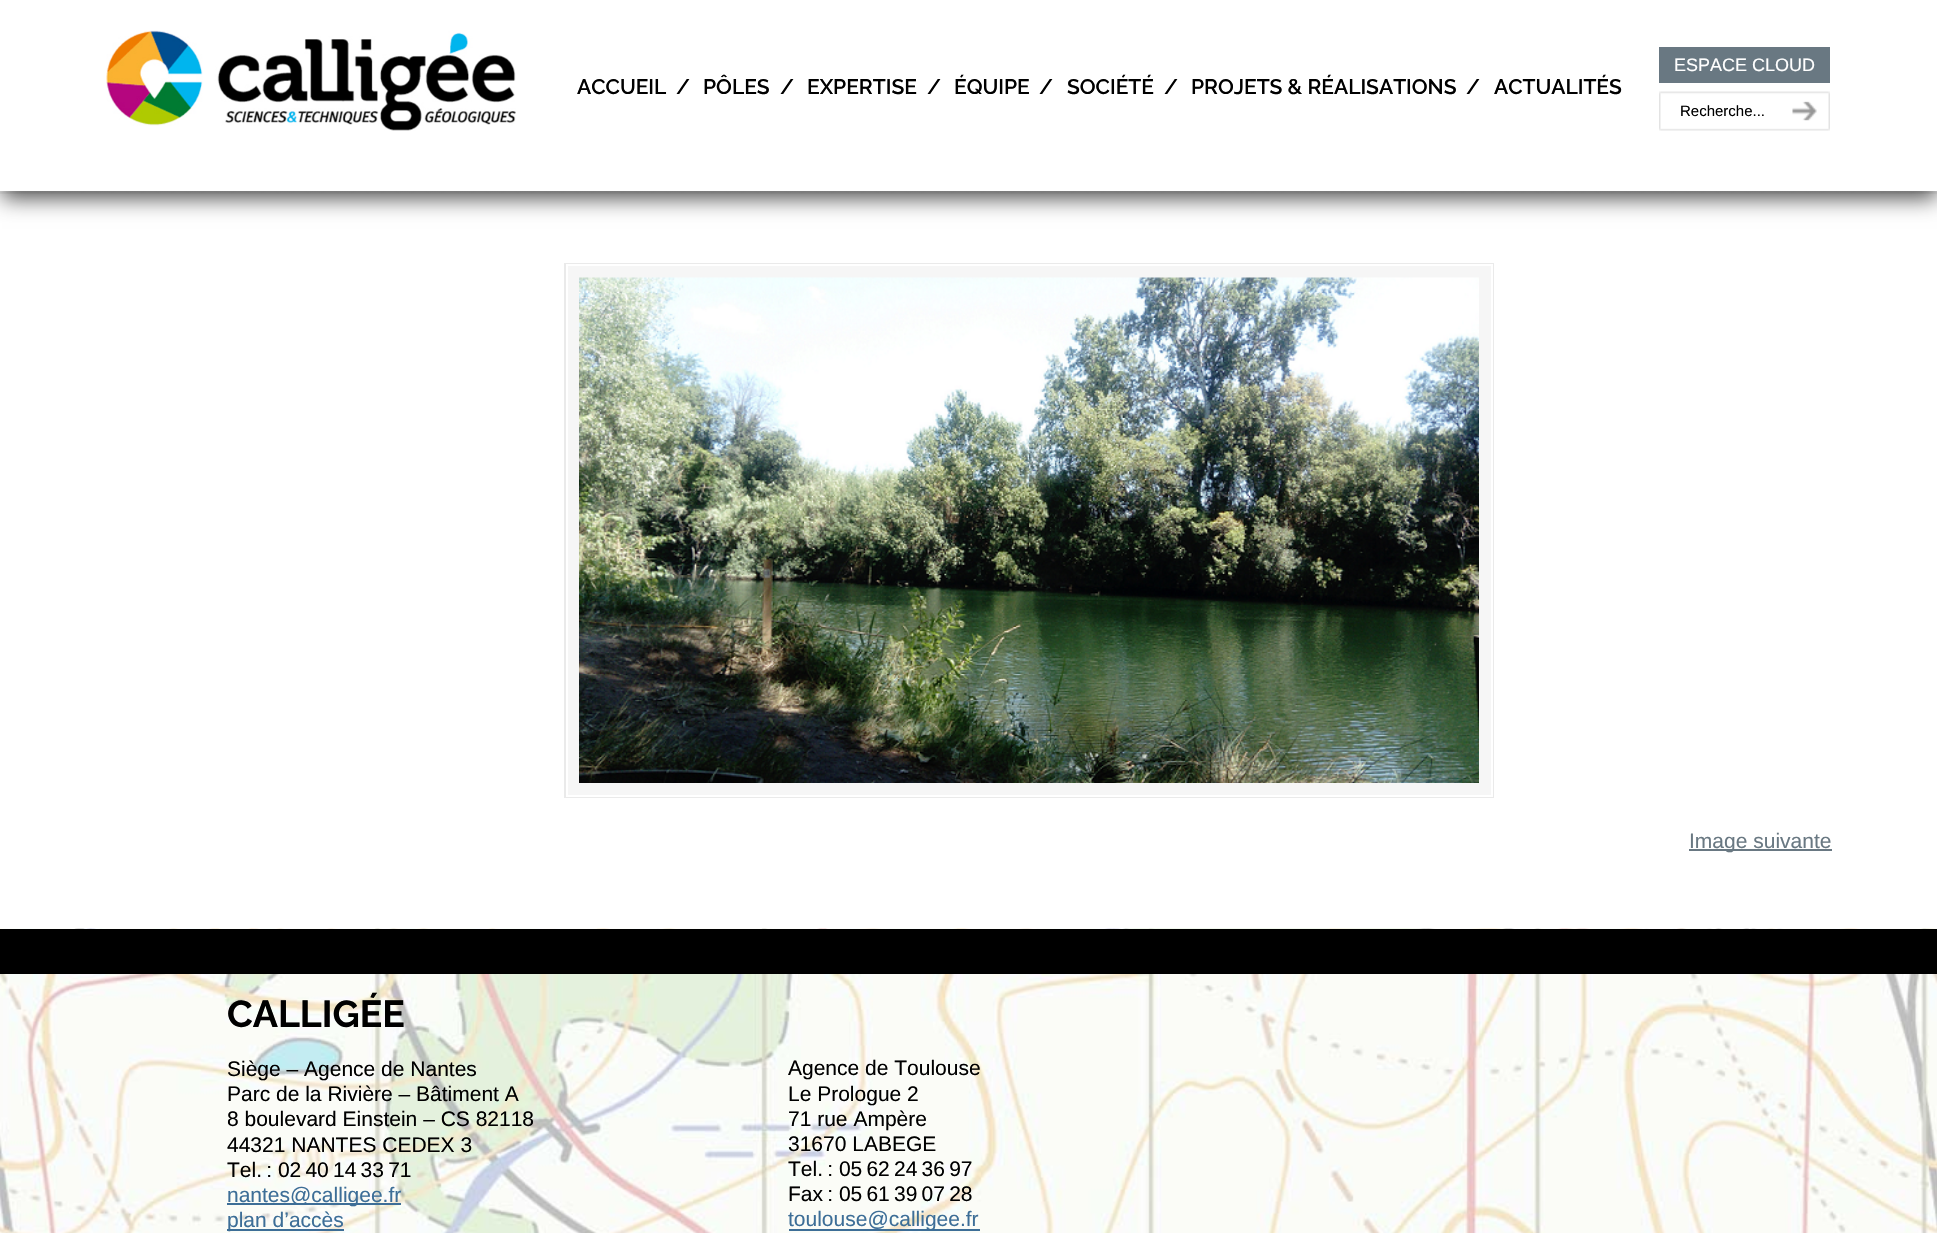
void draw(SkCanvas* canvas) {
	SkPaint fill;
	fill.setAntiAlias(true);
	auto makeFont = [&](const char* family, int weight, float size, bool italic = false) {
		SkFontStyle style(weight, SkFontStyle::kNormal_Width,
			italic ? SkFontStyle::kItalic_Slant : SkFontStyle::kUpright_Slant);
		SkFont result(fontMgr->matchFamilyStyle(family, style), size);
		result.setSubpixel(true);
		return result;
	};
	auto text = [&](const char* s, float x, float y, const SkFont& font) {
		canvas->drawString(s, x, y, font, fill);
	};
	auto box = [&](float l, float t, float r, float b) {
		canvas->drawRect(SkRect::MakeLTRB(l, t, r, b), fill);
	};
	auto picture = [&](const char* path, float l, float t, float r, float b) {
		auto image = SkImages::DeferredFromEncodedData(SkData::MakeFromFileName(path));
		canvas->drawImageRect(image, SkRect::MakeLTRB(l, t, r, b), SkSamplingOptions());
	};
	canvas->clear(0xFFFFFFFF);
	picture("image3.png", 0, 191, 1937, 194);
	fill.setColor(0xB3000000);
	fill.setMaskFilter(SkMaskFilter::MakeBlur(kNormal_SkBlurStyle, 10.5f));
	canvas->drawRect(SkRect::MakeLTRB(2, 11, 1937, 198), fill);
	fill.setMaskFilter(nullptr);
	fill.setColor(0xFFFFFFFF);
	box(0, 0, 1937, 191);
	picture("image0.png", 106, 30, 516, 131);
	fill.setColor(0xFF697882);
	box(1659, 47, 1830, 83);
	picture("image1.png", 1659, 91, 1770, 131);
	picture("image2.png", 1770, 91, 1830, 131);
	fill.setColor(0xFFF6F6F6);
	box(568, 266, 1491, 795);
	fill.setStyle(SkPaint::kStroke_Style);
	fill.setStrokeWidth(2);
	fill.setColor(0xFFEAEAEA);
	canvas->drawRect(SkRect::MakeLTRB(565, 264, 1493, 797), fill);
	fill.setColor(0xFFFFFFFF);
	canvas->drawRect(SkRect::MakeLTRB(567, 265, 1492, 796), fill);
	picture("image4.png", 579, 277, 1479, 783);
	fill.setStyle(SkPaint::kFill_Style);
	fill.setColor(0xFF697882);
	box(1689, 849, 1832, 851);
	picture("image5.png", 0, 928, 1937, 1233);
	fill.setColor(0xFF000000);
	box(0, 929, 1937, 974);
	fill.setColor(0xFF3D6E97);
	box(227, 1203, 401, 1205);
	box(227, 1229, 344, 1231);
	box(789, 1229, 980, 1231);
	auto font1 = makeFont("Raleway", 600, 21);
	fill.setColor(0xFF000000);
	text("ACCUEIL", 577, 94, font1);
	text("/", 676, 94, font1);
	text("PÔLES", 703, 94, font1);
	text("/", 780, 94, font1);
	text("EXPERTISE", 807, 94, font1);
	text("/", 927, 94, font1);
	text("ÉQUIPE", 954, 94, font1);
	text("/", 1039, 94, font1);
	text("SOCIÉTÉ", 1067, 94, font1);
	text("/", 1164, 94, font1);
	text("PROJETS & RÉALISATIONS", 1191, 94, font1);
	text("/", 1466, 94, font1);
	text("ACTUALITÉS", 1494, 94, font1);
	auto font2 = makeFont("Liberation Sans", 400, 18);
	fill.setColor(0xFFFFFFFF);
	text("ESPACE CLOUD", 1674, 71, font2);
	auto font3 = makeFont("Liberation Sans", 400, 15);
	fill.setColor(0xFF000000);
	text("Recherche...", 1680, 116, font3);
	auto font4 = makeFont("Liberation Sans", 400, 21);
	fill.setColor(0xFF697882);
	text("Image suivante", 1689, 848, font4);
	auto font5 = makeFont("Raleway", 700, 37.5f);
	fill.setColor(0xFF000000);
	text("CALLIGÉE", 227, 1027, font5);
	text("Siège – Agence de Nantes", 227, 1076, font4);
	text("Parc de la Rivière – Bâtiment A", 227, 1101, font4);
	text("8 boulevard Einstein – CS 82118", 227, 1126, font4);
	text("44321 NANTES CEDEX 3", 227, 1152, font4);
	text("Tel. : 02 40 14 33 71", 227, 1177, font4);
	fill.setColor(0xFF3D6E97);
	text("nantes@calligee.fr", 227, 1202, font4);
	text("plan d’accès", 227, 1227, font4);
	fill.setColor(0xFF000000);
	text("Agence de Toulouse", 788, 1075, font4);
	text("Le Prologue 2", 788, 1101, font4);
	text("71 rue Ampère", 788, 1126, font4);
	text("31670 LABEGE", 788, 1151, font4);
	text("Tel. : 05 62 24 36 97", 788, 1176, font4);
	text("Fax : 05 61 39 07 28", 788, 1201, font4);
	fill.setColor(0xFF3D6E97);
	text("toulouse@calligee.fr", 788, 1226, font4);
}
